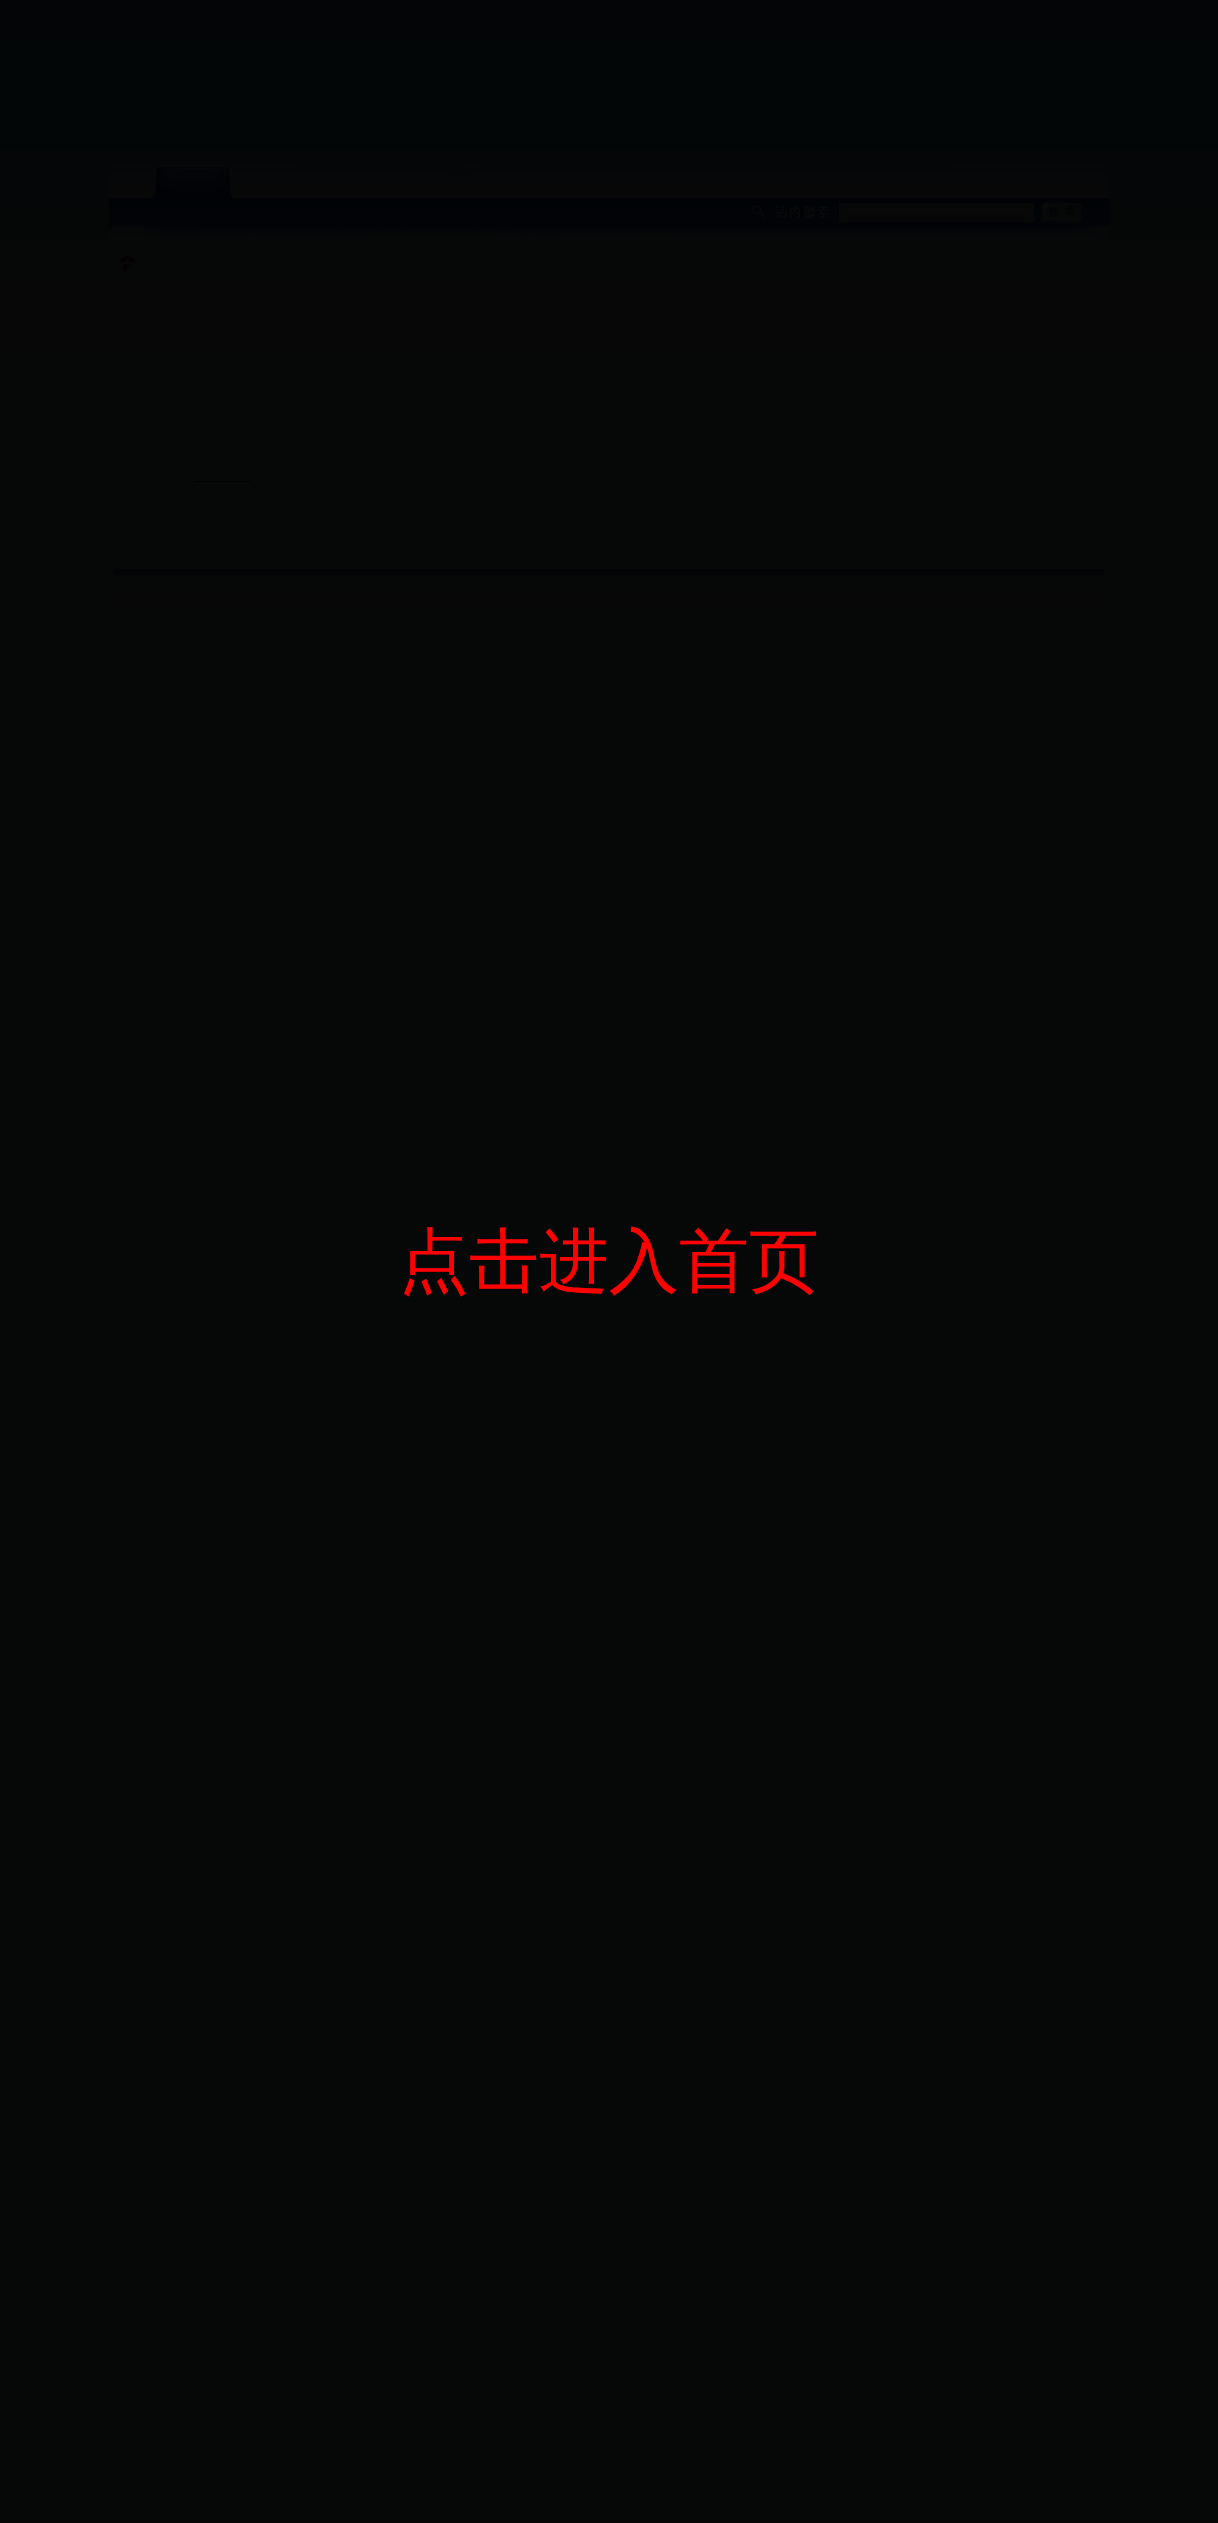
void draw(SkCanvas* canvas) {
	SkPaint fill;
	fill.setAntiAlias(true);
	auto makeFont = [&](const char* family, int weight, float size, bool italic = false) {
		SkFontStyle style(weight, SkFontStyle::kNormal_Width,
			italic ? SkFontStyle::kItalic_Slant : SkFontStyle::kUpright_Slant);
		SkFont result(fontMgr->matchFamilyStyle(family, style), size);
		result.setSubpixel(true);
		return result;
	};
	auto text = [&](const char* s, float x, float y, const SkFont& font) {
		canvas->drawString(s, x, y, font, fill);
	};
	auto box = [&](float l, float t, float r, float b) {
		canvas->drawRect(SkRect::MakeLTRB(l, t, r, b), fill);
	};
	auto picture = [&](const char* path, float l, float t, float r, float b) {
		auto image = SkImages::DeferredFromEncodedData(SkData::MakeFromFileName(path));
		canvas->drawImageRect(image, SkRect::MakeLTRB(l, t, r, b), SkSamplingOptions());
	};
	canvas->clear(0xFF060707);
	picture("image0.png", 0, 0, 1218, 379);
	picture("image1.png", 109, 162, 1109, 238);
	picture("image2.png", 151, 166, 235, 198);
	fill.setStyle(SkPaint::kStroke_Style);
	fill.setStrokeWidth(1);
	fill.setColor(0xFF070707);
	canvas->drawRect(SkRect::MakeLTRB(839.5f, 203.5f, 1033.5f, 221.5f), fill);
	picture("image3.png", 1041, 202, 1083, 221);
	fill.setStyle(SkPaint::kFill_Style);
	fill.setColor(0xFF080808);
	box(109, 238, 1109, 239);
	picture("image4.png", 119, 255, 135, 271);
	fill.setColor(0xFF000000);
	box(194, 481, 250, 482);
	picture("image5.png", 114, 569, 1104, 606);
	auto font1 = makeFont("WenQuanYi Zen Hei", 500, 70);
	fill.setColor(0xFFFF0000);
	text("点击进入首页", 399, 1285, font1);
}
